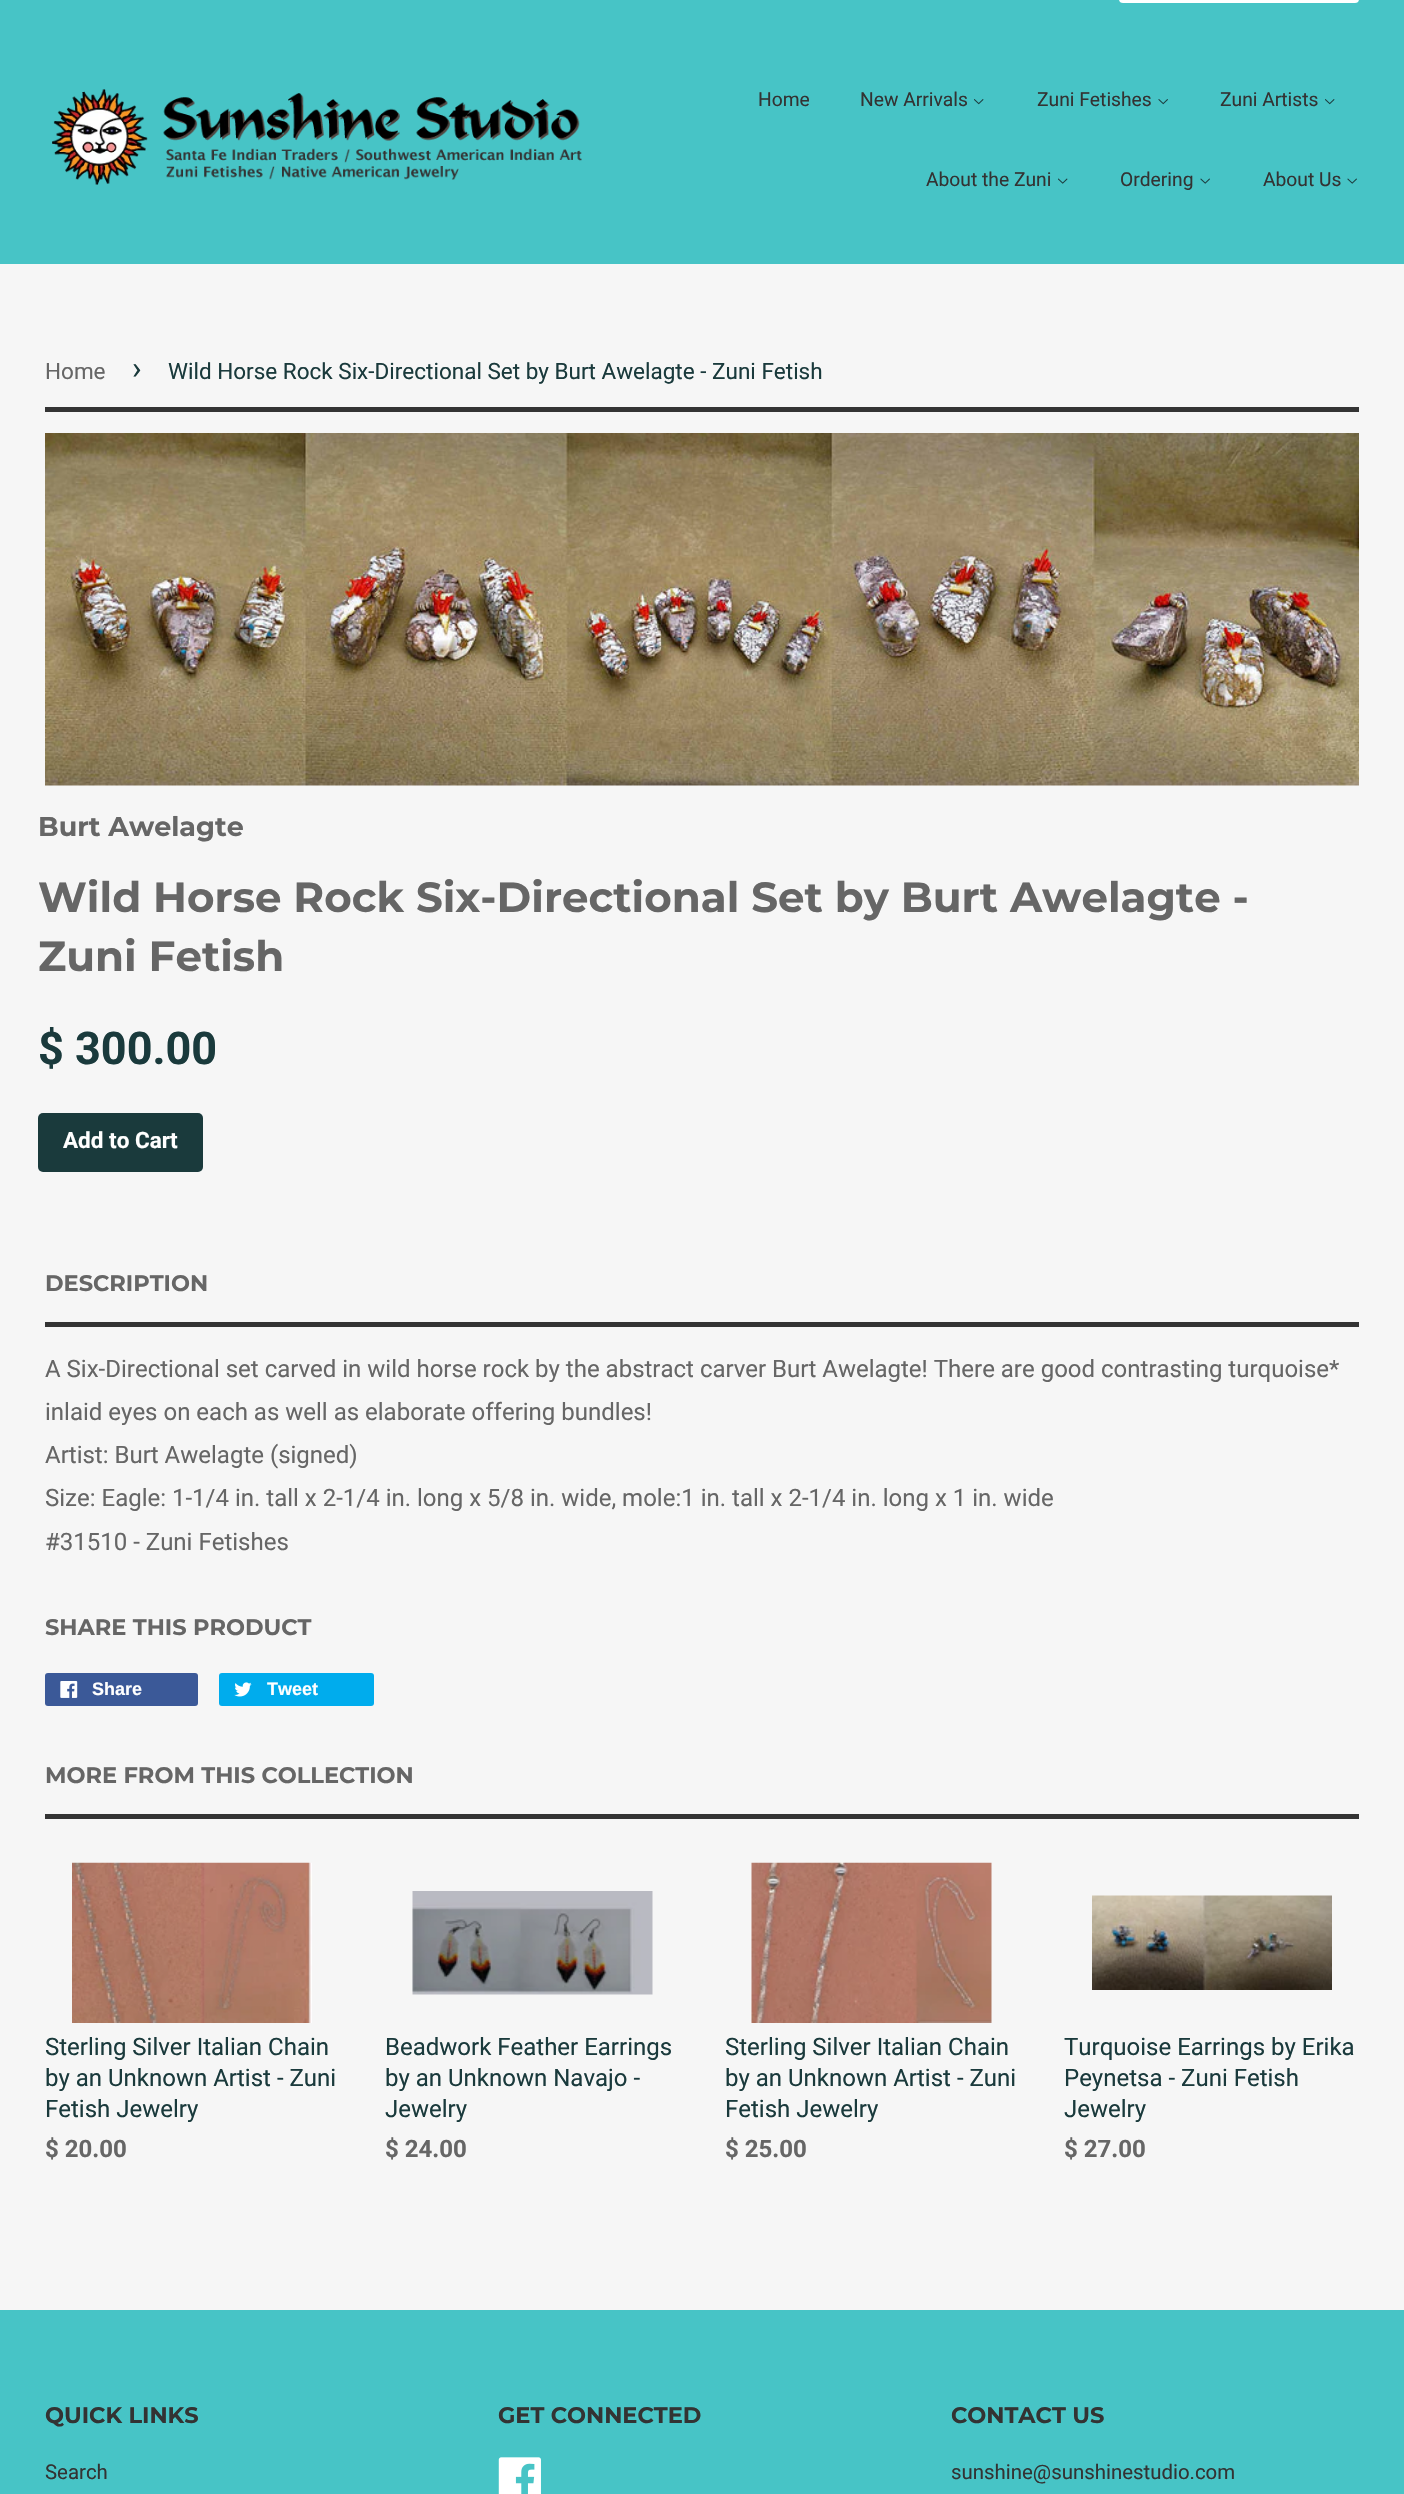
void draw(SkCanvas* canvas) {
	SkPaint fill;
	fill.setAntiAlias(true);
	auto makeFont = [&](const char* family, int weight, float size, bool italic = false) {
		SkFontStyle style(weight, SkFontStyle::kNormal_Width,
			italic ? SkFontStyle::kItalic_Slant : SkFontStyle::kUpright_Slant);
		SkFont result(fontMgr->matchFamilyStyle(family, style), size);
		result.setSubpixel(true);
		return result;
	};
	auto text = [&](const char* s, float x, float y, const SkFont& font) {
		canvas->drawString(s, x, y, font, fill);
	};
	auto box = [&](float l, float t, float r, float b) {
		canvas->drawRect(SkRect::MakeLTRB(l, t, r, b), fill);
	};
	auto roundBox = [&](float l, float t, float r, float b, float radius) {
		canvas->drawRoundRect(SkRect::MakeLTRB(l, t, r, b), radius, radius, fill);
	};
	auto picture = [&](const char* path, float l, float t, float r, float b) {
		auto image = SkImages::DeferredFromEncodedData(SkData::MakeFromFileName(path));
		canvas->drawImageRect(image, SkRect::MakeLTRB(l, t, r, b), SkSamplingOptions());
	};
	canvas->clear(0xFFF6F6F6);
	fill.setColor(0xFF47C4C6);
	box(0, 0, 1404, 264);
	fill.setColor(0xFFFFFFFF);
	roundBox(1119, -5, 1359, 3, 5);
	picture("image0.png", 52, 89, 582, 185);
	picture("image1.png", 974, 99, 984, 105);
	picture("image2.png", 1158, 99, 1168, 105);
	picture("image1.png", 1325, 99, 1335, 105);
	picture("image3.png", 1058, 178, 1068, 184);
	picture("image4.png", 1200, 178, 1210, 184);
	picture("image4.png", 1347, 178, 1357, 184);
	fill.setColor(0xFF343434);
	box(45, 407, 1359, 412);
	picture("image5.png", 45, 433, 1359, 786);
	fill.setColor(0xFF1A3A3C);
	roundBox(38, 1113, 203, 1172, 5);
	fill.setColor(0xFF343434);
	box(45, 1322, 1359, 1327);
	fill.setColor(0xFF3B5998);
	roundBox(45, 1673, 198, 1706, 3);
	picture("image6.png", 60, 1681, 78, 1698);
	fill.setColor(0xFF00ACED);
	roundBox(219, 1673, 374, 1706, 3);
	picture("image7.png", 234, 1682, 252, 1697);
	fill.setColor(0xFF343434);
	box(45, 1814, 1359, 1819);
	picture("image8.png", 72, 1862, 312, 2023);
	picture("image9.png", 412, 1891, 653, 1995);
	picture("image10.png", 751, 1862, 992, 2023);
	picture("image11.png", 1092, 1895, 1332, 1990);
	fill.setColor(0xFF47C4C6);
	box(0, 2310, 1404, 2494);
	picture("image12.png", 498, 2457, 541, 2494);
	auto font1 = makeFont("Roboto", 400, 19.25f);
	fill.setColor(0xFF333333);
	text("Home", 758, 106, font1);
	text("New Arrivals", 860, 106, font1);
	text("Zuni Fetishes", 1037, 106, font1);
	text("Zuni Artists", 1220, 106, font1);
	text("About the Zuni", 926, 186, font1);
	text("Ordering", 1120, 186, font1);
	text("About Us", 1263, 186, font1);
	auto font2 = makeFont("Roboto", 400, 22.5f);
	fill.setColor(0xFF666666);
	text("Home", 45, 379, font2);
	auto font3 = makeFont("Roboto", 400, 32);
	fill.setColor(0xFF1A3A3C);
	text("›", 132, 379, font3);
	text("Wild Horse Rock Six-Directional Set by Burt Awelagte - Zuni Fetish", 168, 379, font2);
	auto font4 = makeFont("Montserrat", 100, 27);
	fill.setColor(0xFF666666);
	text("Burt Awelagte", 38, 836, font4);
	auto font5 = makeFont("Montserrat", 100, 42);
	text("Wild Horse Rock Six-Directional Set by Burt Awelagte -", 38, 912, font5);
	text("Zuni Fetish", 38, 971, font5);
	auto font6 = makeFont("Roboto", 700, 45);
	fill.setColor(0xFF1A3A3C);
	text("$ 300.00", 38, 1064, font6);
	auto font7 = makeFont("Roboto", 700, 22.5f);
	fill.setColor(0xFFFFFFFF);
	text("Add to Cart", 63, 1148, font7);
	auto font8 = makeFont("Montserrat", 100, 22.5f);
	fill.setColor(0xFF666666);
	text("DESCRIPTION", 45, 1291, font8);
	auto font9 = makeFont("Roboto", 400, 24);
	text("A Six-Directional set carved in wild horse rock by the abstract carver Burt Awelagte! There are good contrasting turquoise*", 45, 1377, font9);
	text("inlaid eyes on each as well as elaborate offering bundles!", 45, 1420, font9);
	text("Artist: Burt Awelagte (signed)", 45, 1463, font9);
	text("Size: Eagle: 1-1/4 in. tall x 2-1/4 in. long x 5/8 in. wide, mole:1 in. tall x 2-1/4 in. long x 1 in. wide", 45, 1506, font9);
	text("#31510 - Zuni Fetishes", 45, 1550, font9);
	text("SHARE THIS PRODUCT", 45, 1635, font8);
	auto font10 = makeFont("Liberation Sans", 700, 18);
	fill.setColor(0xFFFFFFFF);
	text("Share", 92, 1695, font10);
	text("Tweet", 267, 1695, font10);
	fill.setColor(0xFF666666);
	text("MORE FROM THIS COLLECTION", 45, 1783, font8);
	fill.setColor(0xFF1A3A3C);
	text("Sterling Silver Italian Chain", 45, 2055, font9);
	text("by an Unknown Artist - Zuni", 45, 2086, font9);
	text("Fetish Jewelry", 45, 2117, font9);
	auto font11 = makeFont("Roboto", 700, 24);
	fill.setColor(0xFF666666);
	text("$ 20.00", 45, 2157, font11);
	fill.setColor(0xFF1A3A3C);
	text("Beadwork Feather Earrings", 385, 2055, font9);
	text("by an Unknown Navajo -", 385, 2086, font9);
	text("Jewelry", 385, 2117, font9);
	fill.setColor(0xFF666666);
	text("$ 24.00", 385, 2157, font11);
	fill.setColor(0xFF1A3A3C);
	text("Sterling Silver Italian Chain", 725, 2055, font9);
	text("by an Unknown Artist - Zuni", 725, 2086, font9);
	text("Fetish Jewelry", 725, 2117, font9);
	fill.setColor(0xFF666666);
	text("$ 25.00", 725, 2157, font11);
	fill.setColor(0xFF1A3A3C);
	text("Turquoise Earrings by Erika", 1064, 2055, font9);
	text("Peynetsa - Zuni Fetish", 1064, 2086, font9);
	text("Jewelry", 1064, 2117, font9);
	fill.setColor(0xFF666666);
	text("$ 27.00", 1064, 2157, font11);
	fill.setColor(0xFF333333);
	text("QUICK LINKS", 45, 2423, font8);
	auto font12 = makeFont("Roboto", 400, 20.4f);
	text("Search", 45, 2479, font12);
	text("GET CONNECTED", 498, 2423, font8);
	text("CONTACT US", 951, 2423, font8);
	text("sunshine@sunshinestudio.com", 951, 2479, font12);
}
